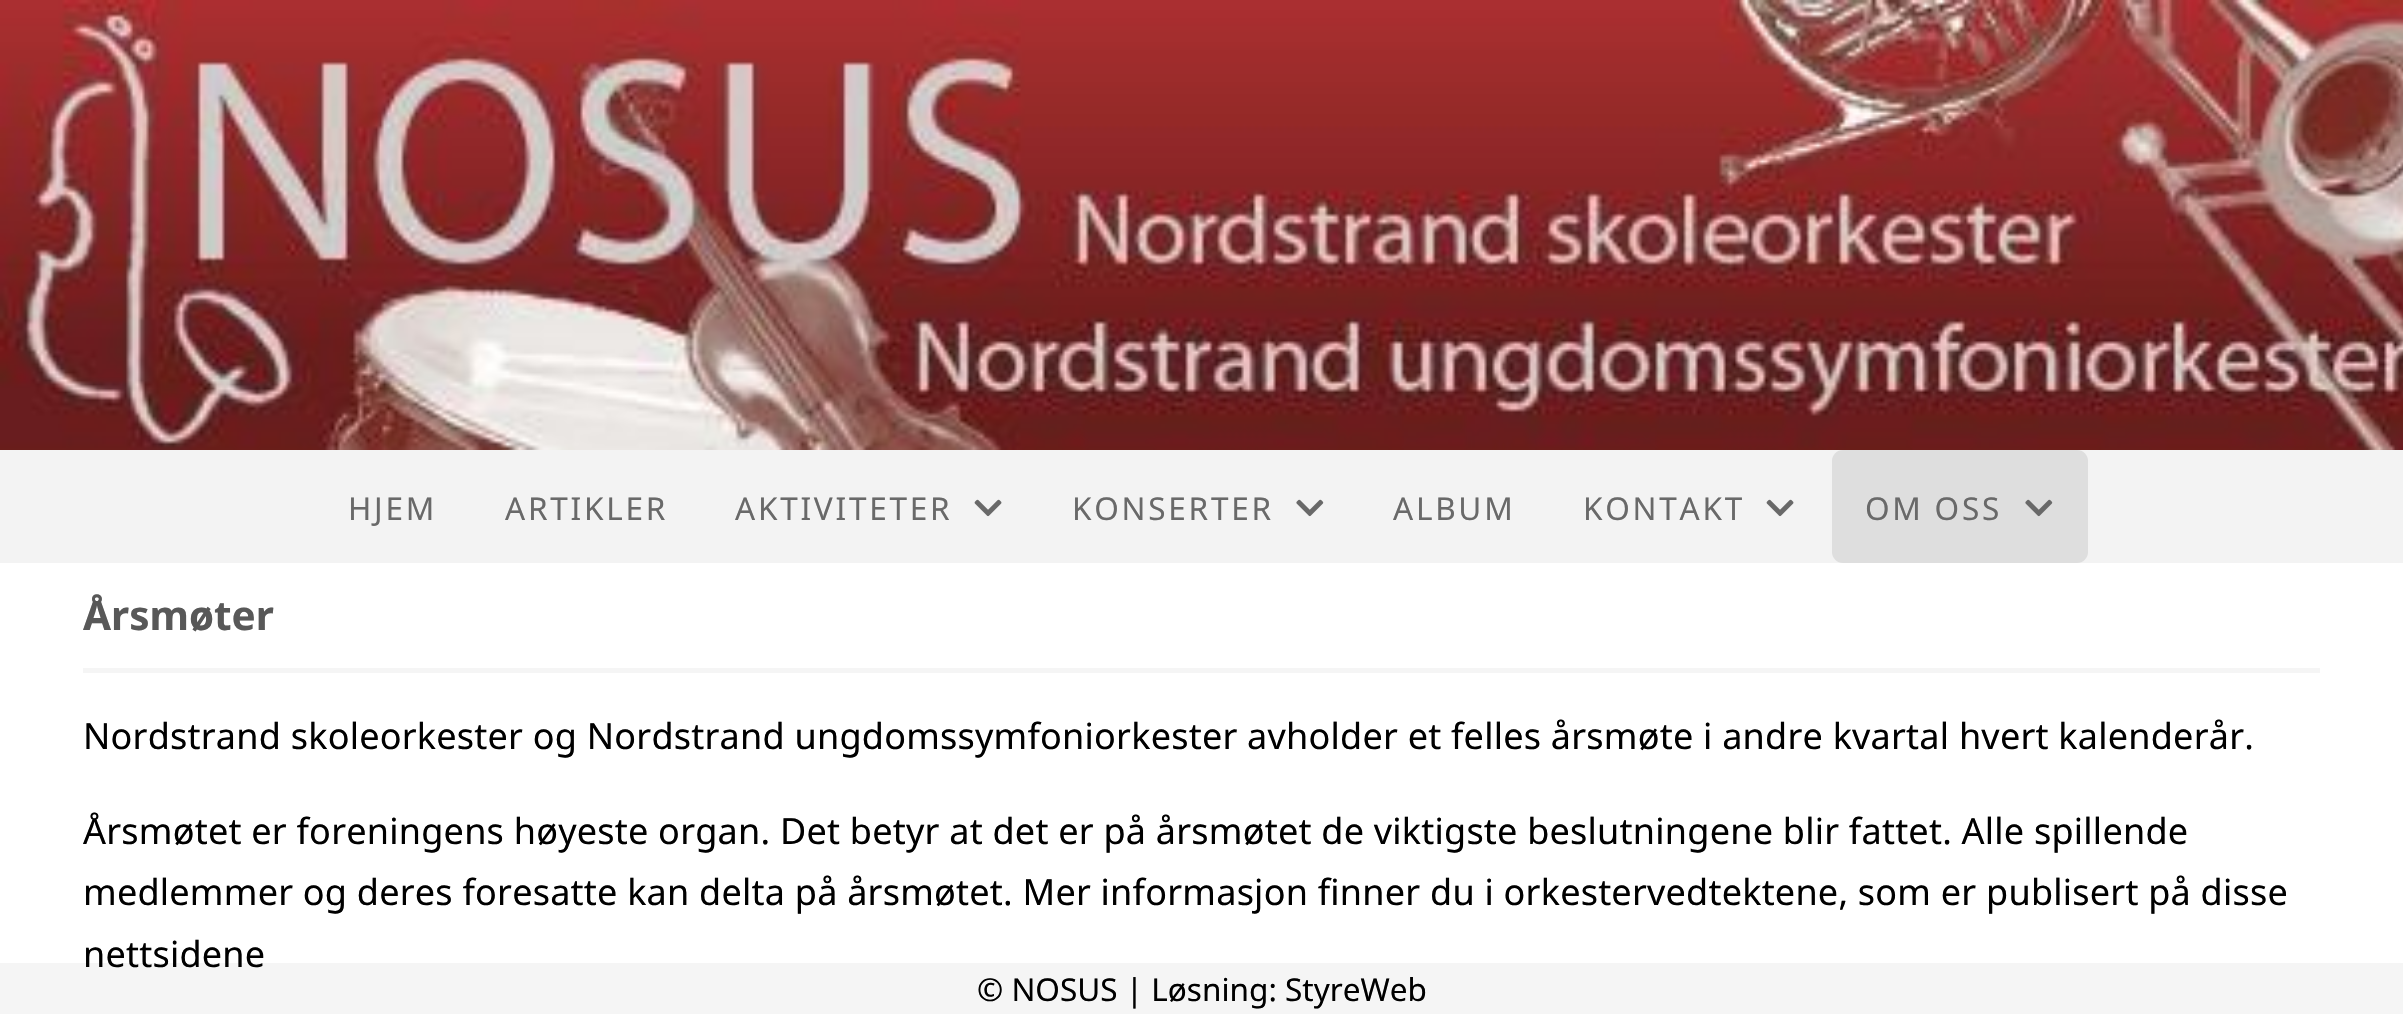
void draw(SkCanvas* canvas) {
	SkPaint fill;
	fill.setAntiAlias(true);
	auto makeFont = [&](const char* family, int weight, float size, bool italic = false) {
		SkFontStyle style(weight, SkFontStyle::kNormal_Width,
			italic ? SkFontStyle::kItalic_Slant : SkFontStyle::kUpright_Slant);
		SkFont result(fontMgr->matchFamilyStyle(family, style), size);
		result.setSubpixel(true);
		return result;
	};
	auto text = [&](const char* s, float x, float y, const SkFont& font) {
		canvas->drawString(s, x, y, font, fill);
	};
	auto spacedText = [&](const char* s, float x, float y, const SkFont& font, const SkPaint& ink, float letter, float word) {
		std::vector<SkGlyphID> glyphs(font.countText(s, strlen(s), SkTextEncoding::kUTF8));
		std::vector<float> xs(glyphs.size());
		font.textToGlyphs(s, strlen(s), SkTextEncoding::kUTF8, glyphs);
		font.getXPos(glyphs, xs, x);
		float extra = 0;
		for (size_t i = 0; i < glyphs.size(); i++) {
			xs[i] += extra;
			extra += letter + word * (glyphs[i] == font.unicharToGlyph(' '));
		}
		canvas->drawTextBlob(SkTextBlob::MakeFromPosHGlyphs(glyphs, xs, y, font), 0, 0, ink);
	};
	auto box = [&](float l, float t, float r, float b) {
		canvas->drawRect(SkRect::MakeLTRB(l, t, r, b), fill);
	};
	auto roundBox = [&](float l, float t, float r, float b, float radius) {
		canvas->drawRoundRect(SkRect::MakeLTRB(l, t, r, b), radius, radius, fill);
	};
	auto picture = [&](const char* path, float l, float t, float r, float b) {
		auto image = SkImages::DeferredFromEncodedData(SkData::MakeFromFileName(path));
		canvas->drawImageRect(image, SkRect::MakeLTRB(l, t, r, b), SkSamplingOptions());
	};
	canvas->clear(0xFFFFFFFF);
	picture("image0.png", 0, 0, 2403, 450);
	fill.setColor(0xFFF3F3F3);
	box(0, 450, 2403, 563);
	picture("image1.png", 974, 499, 1002, 517);
	picture("image2.png", 1296, 499, 1324, 517);
	picture("image1.png", 1766, 499, 1794, 517);
	fill.setColor(0xFFDEDEDE);
	roundBox(1832, 450, 2088, 563, 11);
	picture("image3.png", 2025, 499, 2053, 517);
	fill.setColor(0xFFF5F5F5);
	box(83, 668, 2320, 673);
	box(0, 963, 2403, 1014);
	auto font1 = makeFont("Noto Sans", 400, 31.5f);
	fill.setColor(0xFF696969);
	spacedText("HJEM", 348, 520, font1, fill, 2.75f, 0);
	spacedText("ARTIKLER", 505, 520, font1, fill, 2.75f, 0);
	spacedText("AKTIVITETER", 735, 520, font1, fill, 2.75f, 0);
	spacedText("KONSERTER", 1072, 520, font1, fill, 2.75f, 0);
	spacedText("ALBUM", 1393, 520, font1, fill, 2.75f, 0);
	spacedText("KONTAKT", 1583, 520, font1, fill, 2.75f, 0);
	spacedText("OM OSS", 1865, 520, font1, fill, 2.75f, 0);
	auto font2 = makeFont("Noto Sans", 700, 40.5f);
	fill.setColor(0xFF585858);
	text("Årsmøter", 83, 630, font2);
	auto font3 = makeFont("Noto Sans", 400, 36);
	fill.setColor(0xFF000000);
	spacedText("Nordstrand skoleorkester og Nordstrand ungdomssymfoniorkester avholder et felles årsmøte i andre kvartal hvert kalenderår.", 83, 749, font3, fill, 0.23f, 0);
	spacedText("Årsmøtet er foreningens høyeste organ. Det betyr at det er på årsmøtet de viktigste beslutningene blir fattet. Alle spillende", 83, 844, font3, fill, 0.23f, 0);
	spacedText("medlemmer og deres foresatte kan delta på årsmøtet. Mer informasjon finner du i orkestervedtektene, som er publisert på disse", 83, 905, font3, fill, 0.23f, 0);
	spacedText("nettsidene", 83, 967, font3, fill, 0.23f, 0);
	text("© NOSUS | Løsning: StyreWeb", 977, 1001, font1);
}
